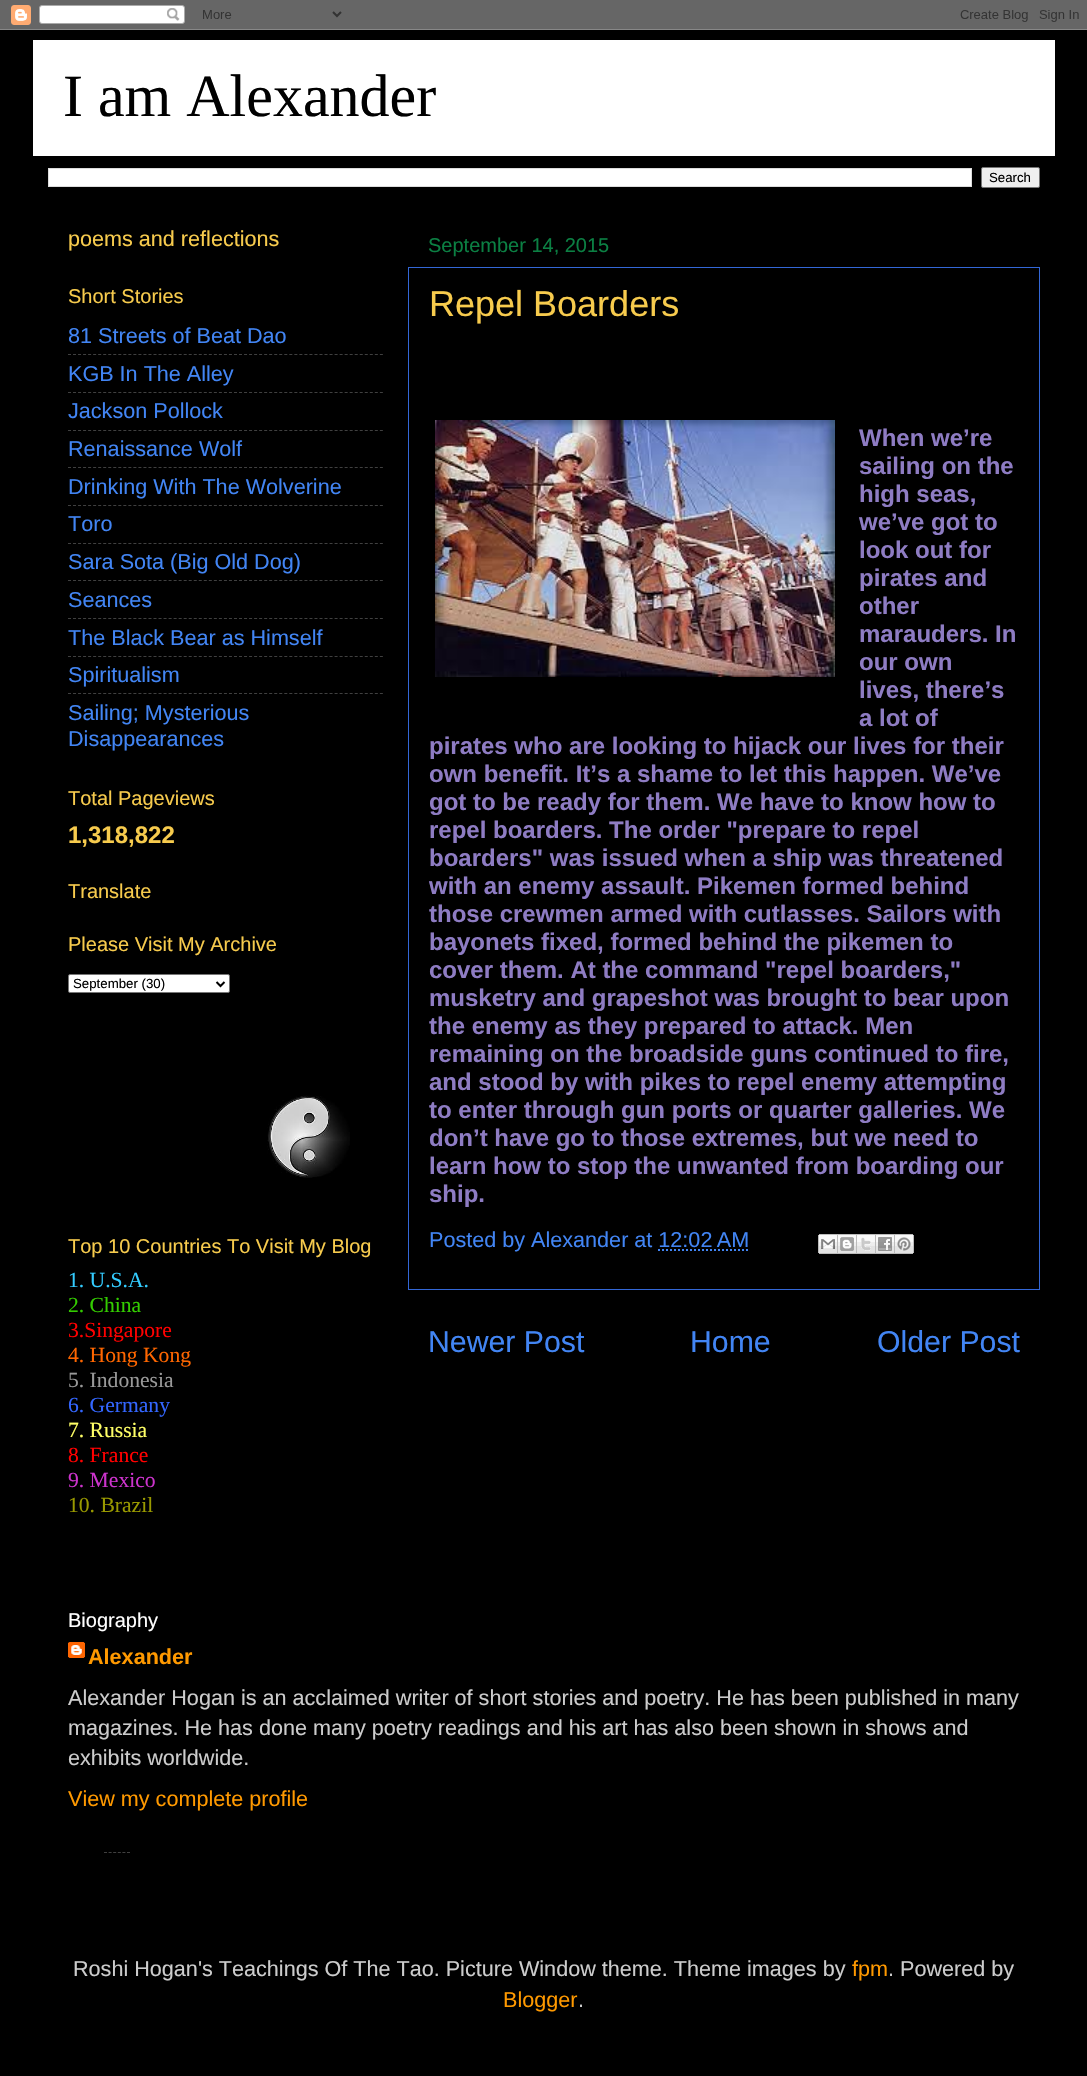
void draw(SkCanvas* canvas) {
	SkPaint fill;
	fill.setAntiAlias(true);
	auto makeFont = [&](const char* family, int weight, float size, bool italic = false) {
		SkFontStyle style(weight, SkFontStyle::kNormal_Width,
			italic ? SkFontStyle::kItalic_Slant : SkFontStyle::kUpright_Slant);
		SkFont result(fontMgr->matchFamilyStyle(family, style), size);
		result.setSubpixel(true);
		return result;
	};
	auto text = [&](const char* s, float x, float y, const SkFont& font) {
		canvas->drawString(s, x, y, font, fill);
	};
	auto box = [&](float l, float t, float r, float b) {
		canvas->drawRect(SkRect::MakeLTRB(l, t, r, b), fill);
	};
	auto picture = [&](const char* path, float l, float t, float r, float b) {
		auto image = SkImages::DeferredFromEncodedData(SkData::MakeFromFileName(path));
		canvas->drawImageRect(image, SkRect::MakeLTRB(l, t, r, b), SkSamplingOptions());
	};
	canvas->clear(0xFF000000);
	picture("image0.png", 0, 0, 1087, 30);
	fill.setColor(0xFFFFFFFF);
	box(33, 40, 1055, 156);
	canvas->drawRect(SkRect::MakeLTRB(48.5f, 168.5f, 971.5f, 186.5f), fill);
	fill.setStyle(SkPaint::kStroke_Style);
	fill.setStrokeWidth(1);
	fill.setColor(0xFFDDDDDD);
	canvas->drawRect(SkRect::MakeLTRB(48.5f, 168.5f, 971.5f, 186.5f), fill);
	fill.setStyle(SkPaint::kFill_Style);
	fill.setColor(0xFFEFEFEF);
	canvas->drawRoundRect(SkRect::MakeLTRB(981.5f, 167.5f, 1039.5f, 187.5f), 1.5f, 1.5f, fill);
	fill.setStyle(SkPaint::kStroke_Style);
	fill.setColor(0xFF767676);
	canvas->drawRoundRect(SkRect::MakeLTRB(981.5f, 167.5f, 1039.5f, 187.5f), 1.5f, 1.5f, fill);
	fill.setColor(0xFF404040);
	fill.setPathEffect(SkDashPathEffect::Make({{3, 2.03f}}, 0));
	canvas->drawPath(SkPathBuilder().moveTo(68, 354.5f).lineTo(383, 354.5f).detach(), fill);
	fill.setPathEffect(nullptr);
	fill.setPathEffect(SkDashPathEffect::Make({{3, 2.03f}}, 0));
	canvas->drawPath(SkPathBuilder().moveTo(68, 392.5f).lineTo(383, 392.5f).detach(), fill);
	fill.setPathEffect(nullptr);
	fill.setPathEffect(SkDashPathEffect::Make({{3, 2.03f}}, 0));
	canvas->drawPath(SkPathBuilder().moveTo(68, 430.5f).lineTo(383, 430.5f).detach(), fill);
	fill.setPathEffect(nullptr);
	fill.setPathEffect(SkDashPathEffect::Make({{3, 2.03f}}, 0));
	canvas->drawPath(SkPathBuilder().moveTo(68, 467.5f).lineTo(383, 467.5f).detach(), fill);
	fill.setPathEffect(nullptr);
	fill.setPathEffect(SkDashPathEffect::Make({{3, 2.03f}}, 0));
	canvas->drawPath(SkPathBuilder().moveTo(68, 505.5f).lineTo(383, 505.5f).detach(), fill);
	fill.setPathEffect(nullptr);
	fill.setPathEffect(SkDashPathEffect::Make({{3, 2.03f}}, 0));
	canvas->drawPath(SkPathBuilder().moveTo(68, 543.5f).lineTo(383, 543.5f).detach(), fill);
	fill.setPathEffect(nullptr);
	fill.setPathEffect(SkDashPathEffect::Make({{3, 2.03f}}, 0));
	canvas->drawPath(SkPathBuilder().moveTo(68, 580.5f).lineTo(383, 580.5f).detach(), fill);
	fill.setPathEffect(nullptr);
	fill.setPathEffect(SkDashPathEffect::Make({{3, 2.03f}}, 0));
	canvas->drawPath(SkPathBuilder().moveTo(68, 618.5f).lineTo(383, 618.5f).detach(), fill);
	fill.setPathEffect(nullptr);
	fill.setPathEffect(SkDashPathEffect::Make({{3, 2.03f}}, 0));
	canvas->drawPath(SkPathBuilder().moveTo(68, 656.5f).lineTo(383, 656.5f).detach(), fill);
	fill.setPathEffect(nullptr);
	fill.setPathEffect(SkDashPathEffect::Make({{3, 2.03f}}, 0));
	canvas->drawPath(SkPathBuilder().moveTo(68, 693.5f).lineTo(383, 693.5f).detach(), fill);
	fill.setPathEffect(nullptr);
	fill.setStyle(SkPaint::kFill_Style);
	fill.setColor(0xFFFFFFFF);
	canvas->drawRoundRect(SkRect::MakeLTRB(68.5f, 974.5f, 229.5f, 992.5f), 1.5f, 1.5f, fill);
	fill.setStyle(SkPaint::kStroke_Style);
	fill.setColor(0xFF767676);
	canvas->drawRoundRect(SkRect::MakeLTRB(68.5f, 974.5f, 229.5f, 992.5f), 1.5f, 1.5f, fill);
	fill.setStrokeWidth(2);
	fill.setColor(0xFF000000);
	canvas->drawPath(SkPathBuilder().moveTo(216.5f, 982).lineTo(220.5f, 986).lineTo(224.5f, 982).detach(), fill);
	picture("image1.png", 267, 1095, 350, 1178);
	fill.setStrokeWidth(1);
	fill.setColor(0xFF3367D6);
	canvas->drawRect(SkRect::MakeLTRB(408.5f, 267.5f, 1039.5f, 1289.5f), fill);
	picture("image2.png", 435, 420, 835, 677);
	picture("image3.png", 818, 1234, 838, 1254);
	picture("image4.png", 838, 1234, 857, 1254);
	picture("image5.png", 857, 1234, 876, 1254);
	picture("image6.png", 876, 1234, 895, 1254);
	picture("image7.png", 895, 1234, 914, 1254);
	fill.setStrokeWidth(2);
	fill.setColor(0xFF4285F4);
	fill.setPathEffect(SkDashPathEffect::Make({{2, 2}}, 0));
	canvas->drawPath(SkPathBuilder().moveTo(658, 1250).lineTo(748.5f, 1250).detach(), fill);
	fill.setPathEffect(nullptr);
	picture("image8.png", 68, 1642, 85, 1658);
	fill.setStrokeWidth(1);
	fill.setColor(0xFF404040);
	fill.setPathEffect(SkDashPathEffect::Make({{3, 1.6f}}, 0));
	canvas->drawPath(SkPathBuilder().moveTo(104, 1852.5f).lineTo(130, 1852.5f).detach(), fill);
	fill.setPathEffect(nullptr);
	auto font1 = makeFont("Liberation Serif", 400, 60);
	fill.setStyle(SkPaint::kFill_Style);
	fill.setColor(0xFF000000);
	text("I am Alexander", 63, 116, font1);
	auto font2 = makeFont("Liberation Sans", 400, 13.25f);
	text("Search", 989, 182, font2);
	auto font3 = makeFont("Liberation Sans", 400, 21.6f);
	fill.setColor(0xFFF7CB4D);
	text("poems and reflections", 68, 246, font3);
	auto font4 = makeFont("Liberation Sans", 400, 20);
	text("Short Stories", 68, 303, font4);
	fill.setColor(0xFF4285F4);
	text("81 Streets of Beat Dao", 68, 343, font3);
	text("KGB In The Alley", 68, 381, font3);
	text("Jackson Pollock", 68, 418, font3);
	text("Renaissance Wolf", 68, 456, font3);
	text("Drinking With The Wolverine", 68, 494, font3);
	text("Toro", 68, 531, font3);
	text("Sara Sota (Big Old Dog)", 68, 569, font3);
	text("Seances", 68, 607, font3);
	text("The Black Bear as Himself", 68, 645, font3);
	text("Spiritualism", 68, 682, font3);
	text("Sailing; Mysterious", 68, 720, font3);
	text("Disappearances", 68, 746, font3);
	fill.setColor(0xFFF7CB4D);
	text("Total Pageviews", 68, 805, font4);
	auto font5 = makeFont("Liberation Sans", 700, 24);
	text("1,318,822", 68, 843, font5);
	text("Translate", 68, 898, font4);
	text("Please Visit My Archive", 68, 951, font4);
	fill.setColor(0xFF000000);
	text("September (30)", 73, 988, font2);
	fill.setColor(0xFFF7CB4D);
	text("Top 10 Countries To Visit My Blog", 68, 1253, font4);
	auto font6 = makeFont("Liberation Serif", 400, 21.6f);
	fill.setColor(0xFF33CCFF);
	text("1. U.S.A.", 68, 1287, font6);
	fill.setColor(0xFF33CC00);
	text("2. China", 68, 1312, font6);
	fill.setColor(0xFFFF0000);
	text("3.Singapore", 68, 1337, font6);
	fill.setColor(0xFFFF6600);
	text("4. Hong Kong", 68, 1362, font6);
	fill.setColor(0xFF999999);
	text("5. Indonesia", 68, 1387, font6);
	fill.setColor(0xFF3366FF);
	text("6. Germany", 68, 1412, font6);
	fill.setColor(0xFFFFFF66);
	text("7. Russia", 68, 1437, font6);
	fill.setColor(0xFFFF0000);
	text("8. France", 68, 1462, font6);
	fill.setColor(0xFFCC33CC);
	text("9. Mexico", 68, 1487, font6);
	fill.setColor(0xFF999900);
	text("10. Brazil", 68, 1512, font6);
	fill.setColor(0xFF0B8043);
	text("September 14, 2015", 428, 252, font4);
	auto font7 = makeFont("Liberation Sans", 400, 36);
	fill.setColor(0xFFF7CB4D);
	text("Repel Boarders", 429, 316, font7);
	fill.setColor(0xFF8E7CC3);
	text("When we’re", 859, 446, font5);
	text("sailing on the", 859, 474, font5);
	text("high seas,", 859, 502, font5);
	text("we’ve got to", 859, 530, font5);
	text("look out for", 859, 558, font5);
	text("pirates and", 859, 586, font5);
	text("other", 859, 614, font5);
	text("marauders. In", 859, 642, font5);
	text("our own", 859, 670, font5);
	text("lives, there’s", 859, 698, font5);
	text("a lot of", 859, 726, font5);
	text("pirates who are looking to hijack our lives for their", 429, 754, font5);
	text("own benefit. It’s a shame to let this happen. We’ve", 429, 782, font5);
	text("got to be ready for them. We have to know how to", 429, 810, font5);
	text("repel boarders. The order \"prepare to repel", 429, 838, font5);
	text("boarders\" was issued when a ship was threatened", 429, 866, font5);
	text("with an enemy assault. Pikemen formed behind", 429, 894, font5);
	text("those crewmen armed with cutlasses. Sailors with", 429, 922, font5);
	text("bayonets fixed, formed behind the pikemen to", 429, 950, font5);
	text("cover them. At the command \"repel boarders,\"", 429, 978, font5);
	text("musketry and grapeshot was brought to bear upon", 429, 1006, font5);
	text("the enemy as they prepared to attack. Men", 429, 1034, font5);
	text("remaining on the broadside guns continued to fire,", 429, 1062, font5);
	text("and stood by with pikes to repel enemy attempting", 429, 1090, font5);
	text("to enter through gun ports or quarter galleries. We", 429, 1118, font5);
	text("don’t have go to those extremes, but we need to", 429, 1146, font5);
	text("learn how to stop the unwanted from boarding our", 429, 1174, font5);
	text("ship.", 429, 1202, font5);
	fill.setColor(0xFF4285F4);
	text("Posted by Alexander at 12:02 AM", 429, 1247, font3);
	auto font8 = makeFont("Liberation Sans", 400, 30.25f);
	text("Newer Post", 428, 1352, font8);
	text("Home", 690, 1352, font8);
	text("Older Post", 877, 1352, font8);
	fill.setColor(0xFFFFFFFF);
	text("Biography", 68, 1627, font4);
	auto font9 = makeFont("Liberation Sans", 700, 21.6f);
	fill.setColor(0xFFFF9900);
	text("Alexander", 88, 1664, font9);
	fill.setColor(0xFFCCCCCC);
	text("Alexander Hogan is an acclaimed writer of short stories and poetry. He has been published in many", 68, 1705, font3);
	text("magazines. He has done many poetry readings and his art has also been shown in shows and", 68, 1735, font3);
	text("exhibits worldwide.", 68, 1765, font3);
	fill.setColor(0xFFFF9900);
	text("View my complete profile", 68, 1806, font3);
	fill.setColor(0xFFCCCCCC);
	text("Roshi Hogan's Teachings Of The Tao. Picture Window theme. Theme images by", 73, 1976, font3);
	fill.setColor(0xFFFF9900);
	text("fpm", 852, 1976, font3);
	fill.setColor(0xFFCCCCCC);
	text(". Powered by", 888, 1976, font3);
	fill.setColor(0xFFFF9900);
	text("Blogger", 503, 2007, font3);
	fill.setColor(0xFFCCCCCC);
	text(".", 578, 2007, font3);
}
